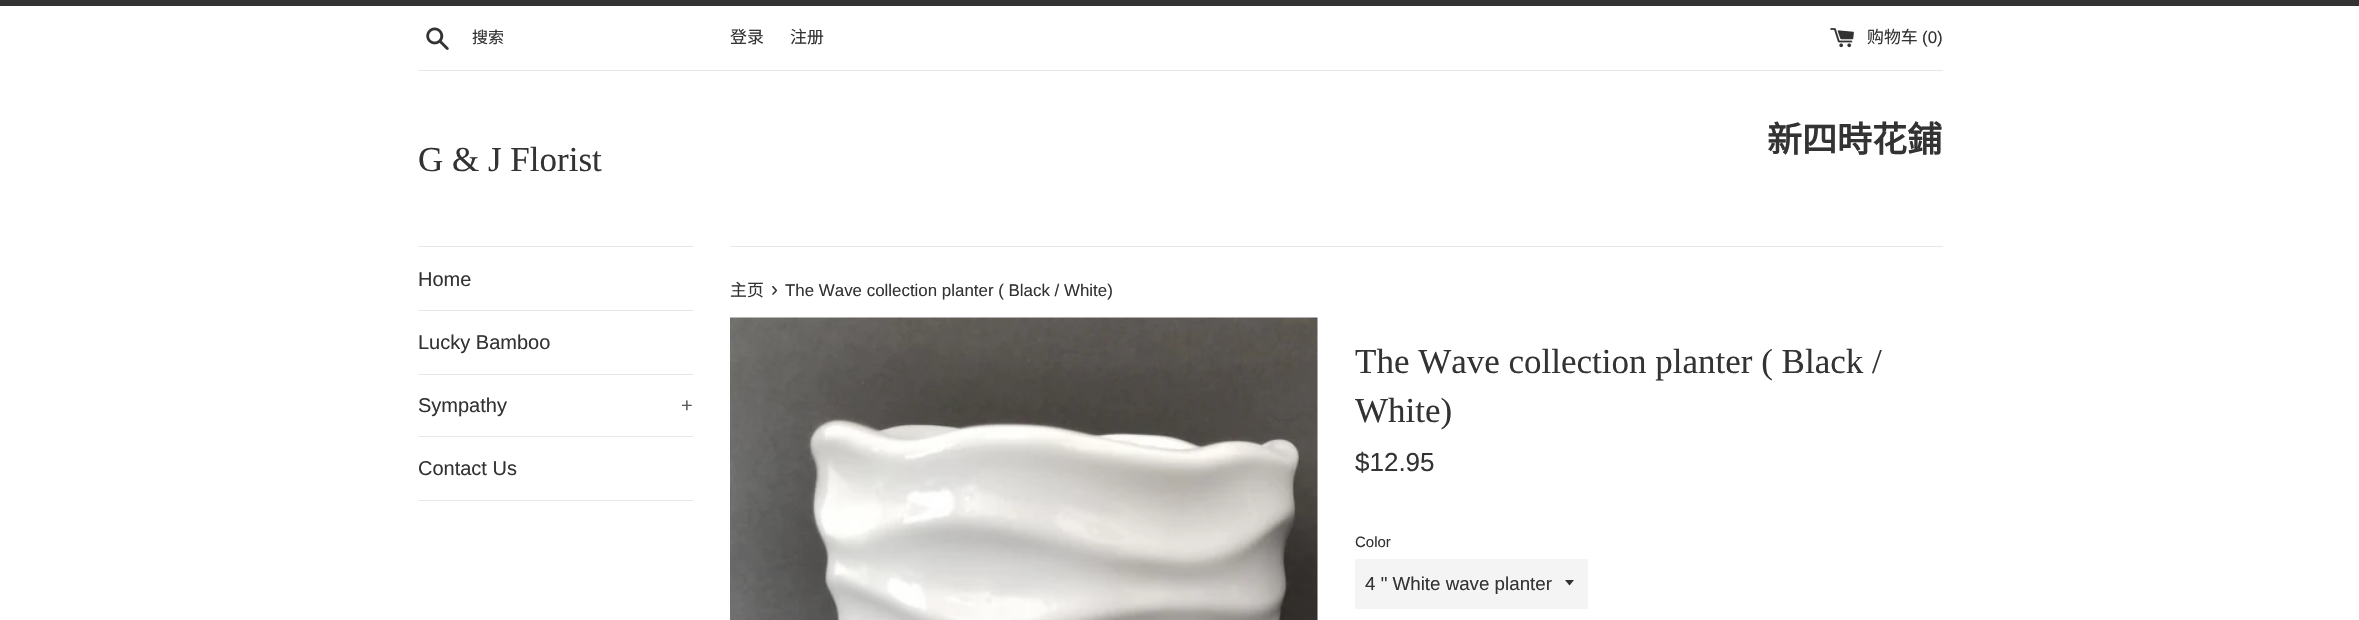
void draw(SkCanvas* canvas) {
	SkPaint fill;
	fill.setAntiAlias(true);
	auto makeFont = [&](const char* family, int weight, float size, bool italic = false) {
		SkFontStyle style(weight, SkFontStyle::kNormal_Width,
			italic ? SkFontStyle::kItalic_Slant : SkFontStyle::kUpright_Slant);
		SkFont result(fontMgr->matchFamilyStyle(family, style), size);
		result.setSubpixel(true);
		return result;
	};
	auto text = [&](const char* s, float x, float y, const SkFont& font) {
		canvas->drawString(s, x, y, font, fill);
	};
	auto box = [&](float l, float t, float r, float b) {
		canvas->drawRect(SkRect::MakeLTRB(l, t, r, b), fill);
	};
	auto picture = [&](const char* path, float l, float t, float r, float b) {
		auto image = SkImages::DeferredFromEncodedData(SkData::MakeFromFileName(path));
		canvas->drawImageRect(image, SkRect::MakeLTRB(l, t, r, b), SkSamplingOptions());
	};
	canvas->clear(0xFFFFFFFF);
	fill.setColor(0xFF333333);
	box(0, 0, 2359, 6);
	picture("image0.png", 426, 27, 449, 50);
	picture("image1.png", 1830, 28, 1854, 48);
	fill.setColor(0xFFE8E8E8);
	box(418, 70, 1943, 71);
	box(418, 246, 693, 247);
	box(418, 310, 693, 311);
	box(418, 374, 693, 375);
	box(418, 436, 693, 437);
	box(418, 500, 693, 501);
	box(730, 246, 1943, 247);
	picture("image2.png", 730, 317, 1318, 620);
	fill.setColor(0xFFF4F4F4);
	box(1355, 559, 1588, 609);
	fill.setColor(0xFF333333);
	canvas->drawPath(SkPathBuilder().moveTo(1565, 580).lineTo(1569.5f, 585.5f).lineTo(1574, 580).close().detach(), fill);
	auto font1 = makeFont("Noto Sans CJK SC", 400, 16);
	text("搜索", 472, 43, font1);
	auto font2 = makeFont("Noto Sans CJK SC", 400, 16.9f);
	text("登录", 730, 43, font2);
	text("注册", 790, 43, font2);
	text("购物车", 1867, 43, font2);
	auto font3 = makeFont("Liberation Sans", 400, 16.9f);
	text("(0)", 1922, 43, font3);
	auto font4 = makeFont("Noto Sans CJK SC", 700, 35);
	text("新四時花鋪", 1767, 152, font4);
	auto font5 = makeFont("Liberation Serif", 400, 35);
	text("G & J Florist", 418, 171, font5);
	auto font6 = makeFont("Liberation Sans", 400, 20);
	text("Home", 418, 286, font6);
	text("Lucky Bamboo", 418, 349, font6);
	text("Sympathy", 418, 412, font6);
	fill.setColor(0xFF5C5C5C);
	text("+", 681, 412, font6);
	fill.setColor(0xFF333333);
	text("Contact Us", 418, 475, font6);
	text("主页", 730, 296, font2);
	auto font7 = makeFont("Liberation Sans", 400, 21);
	text("›", 771, 296, font7);
	text("The Wave collection planter ( Black / White)", 785, 296, font3);
	text("The Wave collection planter ( Black /", 1355, 373, font5);
	text("White)", 1355, 422, font5);
	auto font8 = makeFont("Liberation Sans", 400, 26);
	text("$12.95", 1355, 471, font8);
	auto font9 = makeFont("Liberation Sans", 400, 15);
	text("Color", 1355, 547, font9);
	auto font10 = makeFont("Liberation Sans", 400, 18.75f);
	text("4 \" White wave planter", 1365, 590, font10);
}
